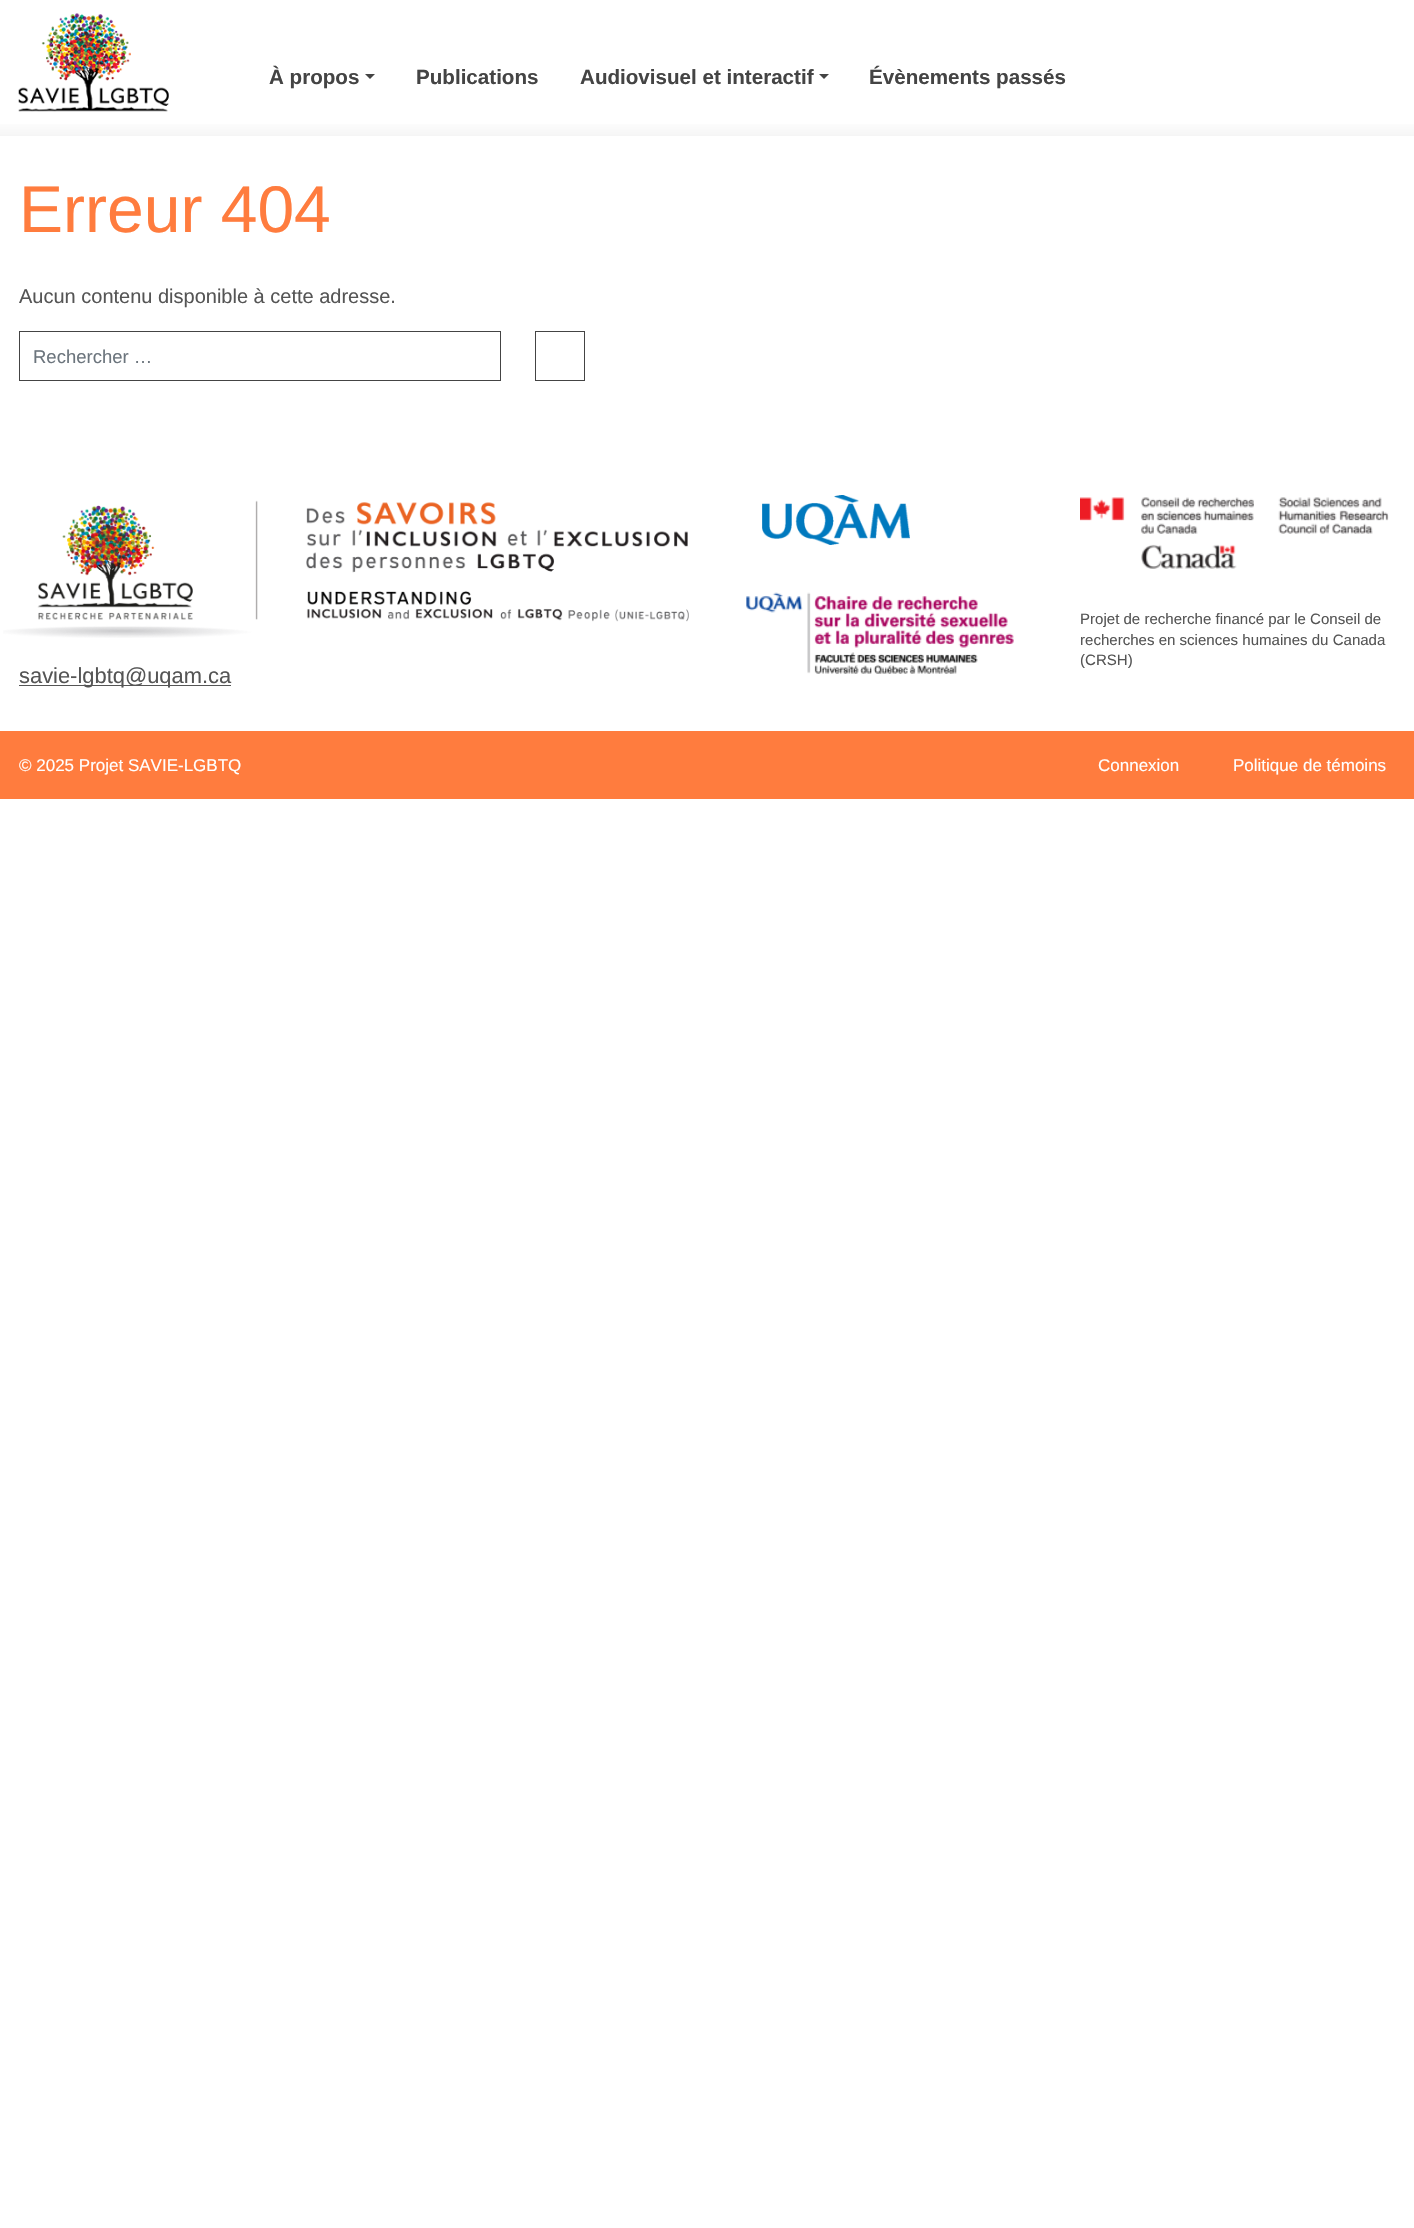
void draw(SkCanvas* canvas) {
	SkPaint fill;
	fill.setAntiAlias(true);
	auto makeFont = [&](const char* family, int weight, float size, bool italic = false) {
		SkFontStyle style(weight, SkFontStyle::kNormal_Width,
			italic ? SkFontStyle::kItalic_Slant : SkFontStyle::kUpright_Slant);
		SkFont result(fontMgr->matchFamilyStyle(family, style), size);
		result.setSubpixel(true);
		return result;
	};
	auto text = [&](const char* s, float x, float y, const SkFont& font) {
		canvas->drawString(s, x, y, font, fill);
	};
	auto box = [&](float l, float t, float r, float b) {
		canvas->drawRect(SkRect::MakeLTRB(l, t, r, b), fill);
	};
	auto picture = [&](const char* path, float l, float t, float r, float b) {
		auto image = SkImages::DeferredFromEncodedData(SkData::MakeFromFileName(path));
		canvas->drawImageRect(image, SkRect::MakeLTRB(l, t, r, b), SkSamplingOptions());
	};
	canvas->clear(0xFFFFFFFF);
	{
		const SkColor colors[] = {0xFFFFFFFF, 0xFFFFFFFF, 0xFFF5F5F5};
		const float stops[] = {0, 0.88f, 1};
		const SkPoint ends[] = {{708, 0}, {708, 136}};
		fill.setShader(SkGradientShader::MakeLinear(ends, colors, stops, 3, SkTileMode::kClamp));
		fill.setAlpha(255);
	}
	box(0, 124, 1414, 136);
	picture("image0.png", 18, 13, 169, 112);
	fill.setShader(nullptr);
	fill.setColor(0xFF444444);
	canvas->drawPath(SkPathBuilder().moveTo(365, 74).lineTo(375, 74).lineTo(370, 79).close().detach(), fill);
	canvas->drawPath(SkPathBuilder().moveTo(819, 74).lineTo(829, 74).lineTo(824, 79).close().detach(), fill);
	fill.setStyle(SkPaint::kStroke_Style);
	fill.setStrokeWidth(1);
	canvas->drawRect(SkRect::MakeLTRB(19.5f, 331.5f, 500.5f, 380.5f), fill);
	canvas->drawRect(SkRect::MakeLTRB(535.5f, 331.5f, 584.5f, 380.5f), fill);
	picture("image1.png", 762, 495, 910, 545);
	picture("image2.png", 746, 592, 1014, 674);
	picture("image3.png", 1080, 497, 1389, 569);
	picture("image4.png", 3, 500, 689, 638);
	fill.setStyle(SkPaint::kFill_Style);
	fill.setColor(0xFF555555);
	box(19, 685, 231, 686);
	fill.setColor(0xFFFF7C3E);
	box(0, 731, 1414, 799);
	auto font1 = makeFont("Liberation Sans", 700, 20.6f);
	fill.setColor(0xFF444444);
	text("À propos", 269, 84, font1);
	text("Publications", 416, 84, font1);
	text("Audiovisuel et interactif", 580, 84, font1);
	text("Évènements passés", 869, 84, font1);
	auto font2 = makeFont("Liberation Sans", 400, 66);
	fill.setColor(0xFFFF7C3E);
	text("Erreur 404", 19, 232, font2);
	auto font3 = makeFont("Liberation Sans", 400, 20);
	fill.setColor(0xFF555555);
	text("Aucun contenu disponible à cette adresse.", 19, 303, font3);
	auto font4 = makeFont("Liberation Sans", 400, 18.5f);
	fill.setColor(0xFF6C757D);
	text("Rechercher …", 33, 363, font4);
	auto font5 = makeFont("Liberation Sans", 400, 15.05f);
	fill.setColor(0xFF555555);
	text("Projet de recherche financé par le Conseil de", 1080, 624, font5);
	text("recherches en sciences humaines du Canada", 1080, 645, font5);
	text("(CRSH)", 1080, 665, font5);
	auto font6 = makeFont("Liberation Sans", 400, 21.9f);
	text("savie-lgbtq@uqam.ca", 19, 683, font6);
	auto font7 = makeFont("Liberation Sans", 400, 17);
	fill.setColor(0xFFFFFFFF);
	text("© 2025 Projet SAVIE-LGBTQ", 19, 771, font7);
	text("Connexion", 1098, 771, font7);
	text("Politique de témoins", 1233, 771, font7);
}
